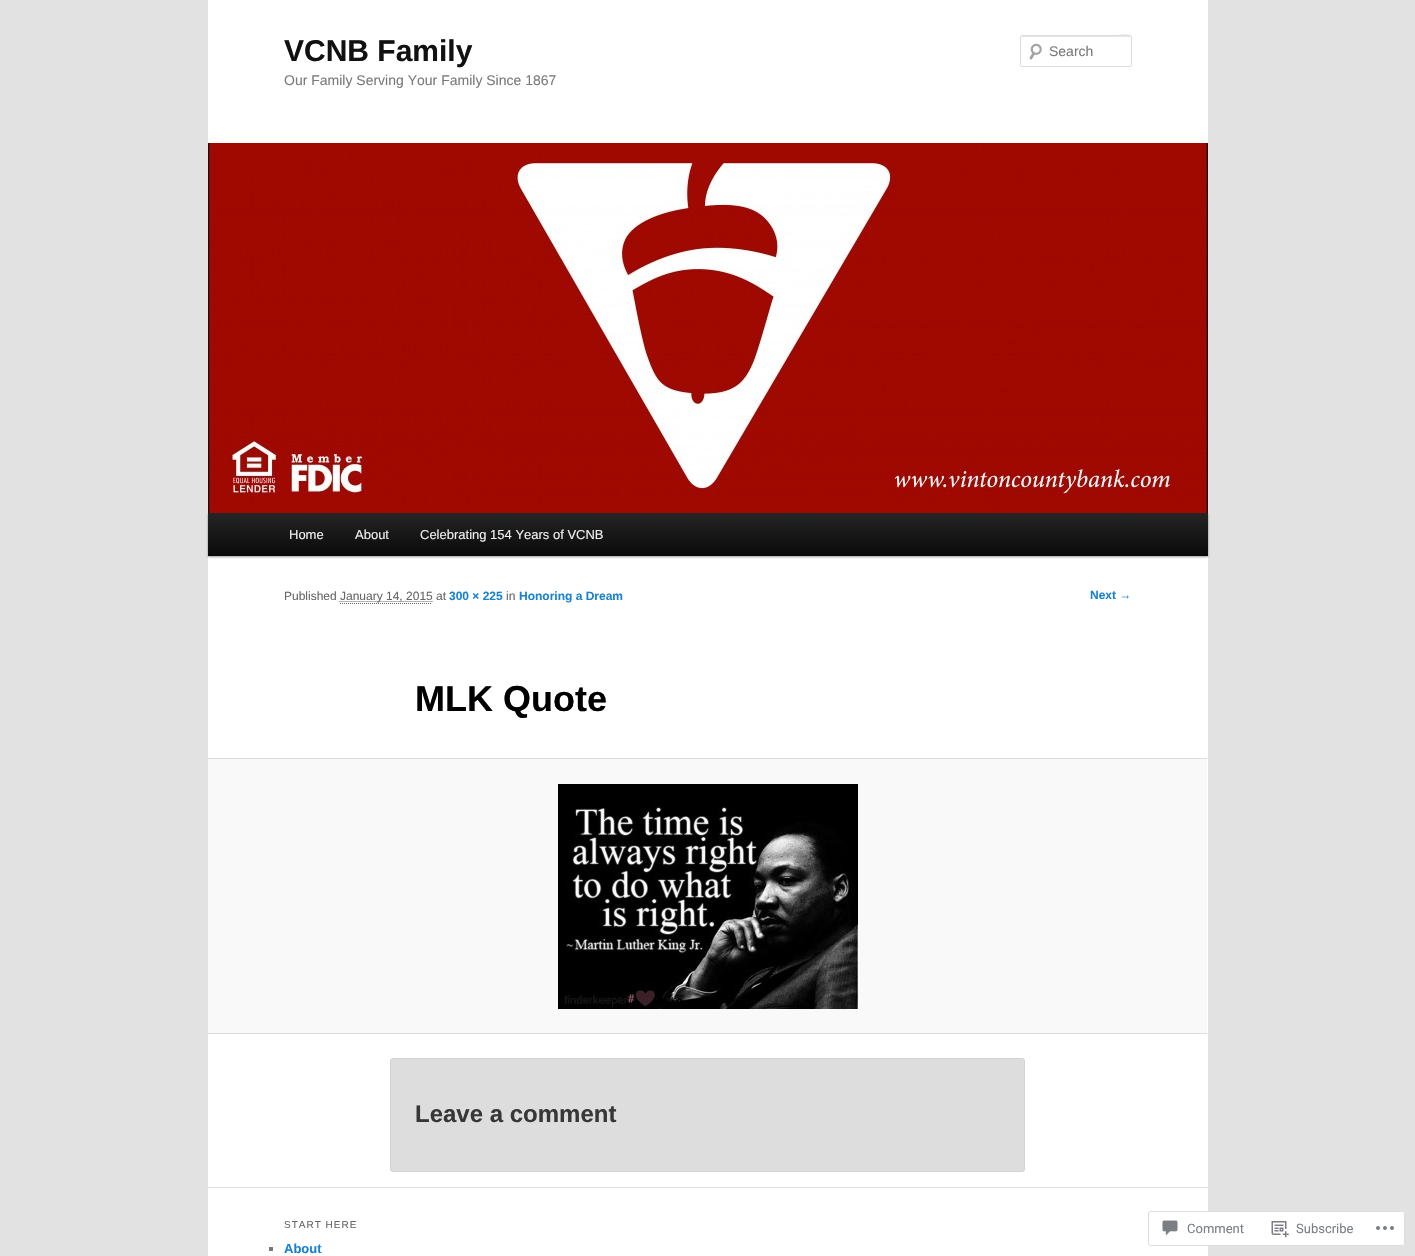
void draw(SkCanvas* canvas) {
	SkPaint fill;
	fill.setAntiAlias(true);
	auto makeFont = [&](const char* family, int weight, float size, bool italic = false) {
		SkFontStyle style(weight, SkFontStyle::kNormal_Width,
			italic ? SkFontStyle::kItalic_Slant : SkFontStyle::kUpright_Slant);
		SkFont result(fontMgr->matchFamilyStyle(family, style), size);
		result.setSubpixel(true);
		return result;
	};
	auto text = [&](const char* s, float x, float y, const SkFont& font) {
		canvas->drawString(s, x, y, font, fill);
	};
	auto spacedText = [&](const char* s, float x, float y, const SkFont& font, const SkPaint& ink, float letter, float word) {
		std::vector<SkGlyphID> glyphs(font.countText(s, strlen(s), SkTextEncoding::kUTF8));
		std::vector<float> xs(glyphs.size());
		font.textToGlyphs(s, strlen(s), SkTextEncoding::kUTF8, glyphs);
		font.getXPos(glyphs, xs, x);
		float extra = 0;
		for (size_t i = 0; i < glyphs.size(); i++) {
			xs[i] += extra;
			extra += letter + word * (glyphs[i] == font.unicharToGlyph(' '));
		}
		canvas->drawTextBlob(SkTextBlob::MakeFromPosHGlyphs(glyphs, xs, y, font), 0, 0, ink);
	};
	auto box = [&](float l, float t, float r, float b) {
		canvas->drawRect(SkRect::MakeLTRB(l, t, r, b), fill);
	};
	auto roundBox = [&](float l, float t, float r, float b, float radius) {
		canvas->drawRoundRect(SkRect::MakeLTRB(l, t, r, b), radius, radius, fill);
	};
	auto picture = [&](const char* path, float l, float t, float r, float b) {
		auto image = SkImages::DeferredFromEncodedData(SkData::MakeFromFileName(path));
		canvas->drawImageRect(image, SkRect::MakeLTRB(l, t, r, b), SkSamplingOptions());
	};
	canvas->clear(0xFFE2E2E2);
	fill.setColor(0xFFFFFFFF);
	box(208, 0, 1208, 1256);
	picture("image0.png", 1029, 43, 1042, 60);
	fill.setColor(0xFFE6E6E6);
	canvas->drawPath(SkPathBuilder().moveTo(1022, 37).lineTo(1131, 37).lineTo(1131, 38).cubicTo(1131, 31, 1116, 36, 1112, 36).lineTo(1022, 36).lineTo(1021, 38).cubicTo(1021, 37, 1021, 37, 1022, 37).close().detach(), fill);
	fill.setStyle(SkPaint::kStroke_Style);
	fill.setStrokeWidth(1);
	fill.setColor(0xFFDDDDDD);
	canvas->drawRoundRect(SkRect::MakeLTRB(1020.5f, 35.5f, 1131.5f, 66.5f), 1.5f, 1.5f, fill);
	fill.setStyle(SkPaint::kFill_Style);
	fill.setColor(0x66000000);
	fill.setMaskFilter(SkMaskFilter::MakeBlur(kNormal_SkBlurStyle, 1));
	canvas->drawRect(SkRect::MakeLTRB(208, 514, 1208, 557), fill);
	fill.setMaskFilter(nullptr);
	picture("image1.png", 208, 143, 1208, 513);
	{
		const SkColor colors[] = {0xFF252525, 0xFF0A0A0A};
		const float stops[] = {0, 1};
		const SkPoint ends[] = {{708, 513}, {708, 556}};
		fill.setShader(SkGradientShader::MakeLinear(ends, colors, stops, 2, SkTileMode::kClamp));
		fill.setAlpha(255);
	}
	box(208, 513, 1208, 556);
	fill.setStyle(SkPaint::kStroke_Style);
	fill.setShader(nullptr);
	fill.setColor(0xFF666666);
	fill.setPathEffect(SkDashPathEffect::Make({{1, 1}}, 0));
	canvas->drawPath(SkPathBuilder().moveTo(340, 603.5f).lineTo(432, 603.5f).detach(), fill);
	fill.setPathEffect(nullptr);
	fill.setPathEffect(SkDashPathEffect::Make({{1, 1}}, 0));
	canvas->drawPath(SkPathBuilder().moveTo(339.5f, 601.5f).lineTo(432.5f, 601.5f).detach(), fill);
	fill.setPathEffect(nullptr);
	fill.setStyle(SkPaint::kFill_Style);
	fill.setColor(0xFFF9F9F9);
	box(208, 759, 1207, 1033);
	fill.setColor(0xFFDDDDDD);
	box(208, 758, 1207, 759);
	box(208, 1033, 1207, 1034);
	picture("image2.png", 558, 784, 858, 1009);
	canvas->drawRoundRect(SkRect::MakeLTRB(390.5f, 1058.5f, 1024.5f, 1171.5f), 2.5f, 2.5f, fill);
	fill.setStyle(SkPaint::kStroke_Style);
	fill.setColor(0xFFD3D3D3);
	canvas->drawRoundRect(SkRect::MakeLTRB(390.5f, 1058.5f, 1024.5f, 1171.5f), 2.5f, 2.5f, fill);
	fill.setStyle(SkPaint::kFill_Style);
	fill.setColor(0xFFDDDDDD);
	box(208, 1187, 1208, 1188);
	fill.setColor(0xFF777777);
	box(269, 1247, 273, 1251);
	fill.setColor(0xFAFFFFFF);
	roundBox(1148, 1211, 1405, 1246, 3);
	fill.setStyle(SkPaint::kStroke_Style);
	fill.setColor(0xFADCDCDE);
	canvas->drawRoundRect(SkRect::MakeLTRB(1148.5f, 1211.5f, 1404.5f, 1245.5f), 2.5f, 2.5f, fill);
	picture("image3.png", 1162, 1220, 1178, 1236);
	picture("image4.png", 1271, 1221, 1289, 1238);
	picture("image5.png", 1376, 1226, 1394, 1230);
	auto font1 = makeFont("Liberation Sans", 700, 30);
	fill.setStyle(SkPaint::kFill_Style);
	fill.setColor(0xFF111111);
	text("VCNB Family", 284, 61, font1);
	auto font2 = makeFont("Liberation Sans", 400, 14);
	fill.setColor(0xFF7A7A7A);
	text("Our Family Serving Your Family Since 1867", 284, 85, font2);
	text("Search", 1049, 56, font2);
	auto font3 = makeFont("Liberation Sans", 400, 13);
	fill.setColor(0xFFEEEEEE);
	text("Home", 289, 539, font3);
	text("About", 355, 539, font3);
	text("Celebrating 154 Years of VCNB", 420, 539, font3);
	auto font4 = makeFont("Liberation Sans", 400, 12);
	fill.setColor(0xFF666666);
	text("Published", 284, 600, font4);
	text("January 14, 2015 at", 340, 600, font4);
	auto font5 = makeFont("Liberation Sans", 700, 12);
	fill.setColor(0xFF1982D1);
	text("300 × 225", 449, 600, font5);
	fill.setColor(0xFF666666);
	text("in", 506, 600, font4);
	fill.setColor(0xFF1982D1);
	text("Honoring a Dream", 519, 600, font5);
	auto font6 = makeFont("Liberation Sans", 700, 36);
	fill.setColor(0xFF000000);
	text("MLK Quote", 415, 711, font6);
	fill.setColor(0xFF1982D1);
	text("Next →", 1090, 599, font5);
	auto font7 = makeFont("Liberation Sans", 700, 24);
	fill.setColor(0xFF373737);
	text("Leave a comment", 415, 1122, font7);
	auto font8 = makeFont("Liberation Sans", 400, 10);
	fill.setColor(0xFF666666);
	spacedText("START HERE", 284, 1228, font8, fill, 1, 0);
	auto font9 = makeFont("Liberation Sans", 700, 13);
	fill.setColor(0xFF1982D1);
	text("About", 284, 1253, font9);
	auto font10 = makeFont("Roboto", 400, 13);
	fill.setColor(0xFF7B7F84);
	text("Comment", 1187, 1233, font10);
	text("Subscribe", 1296, 1233, font10);
}
